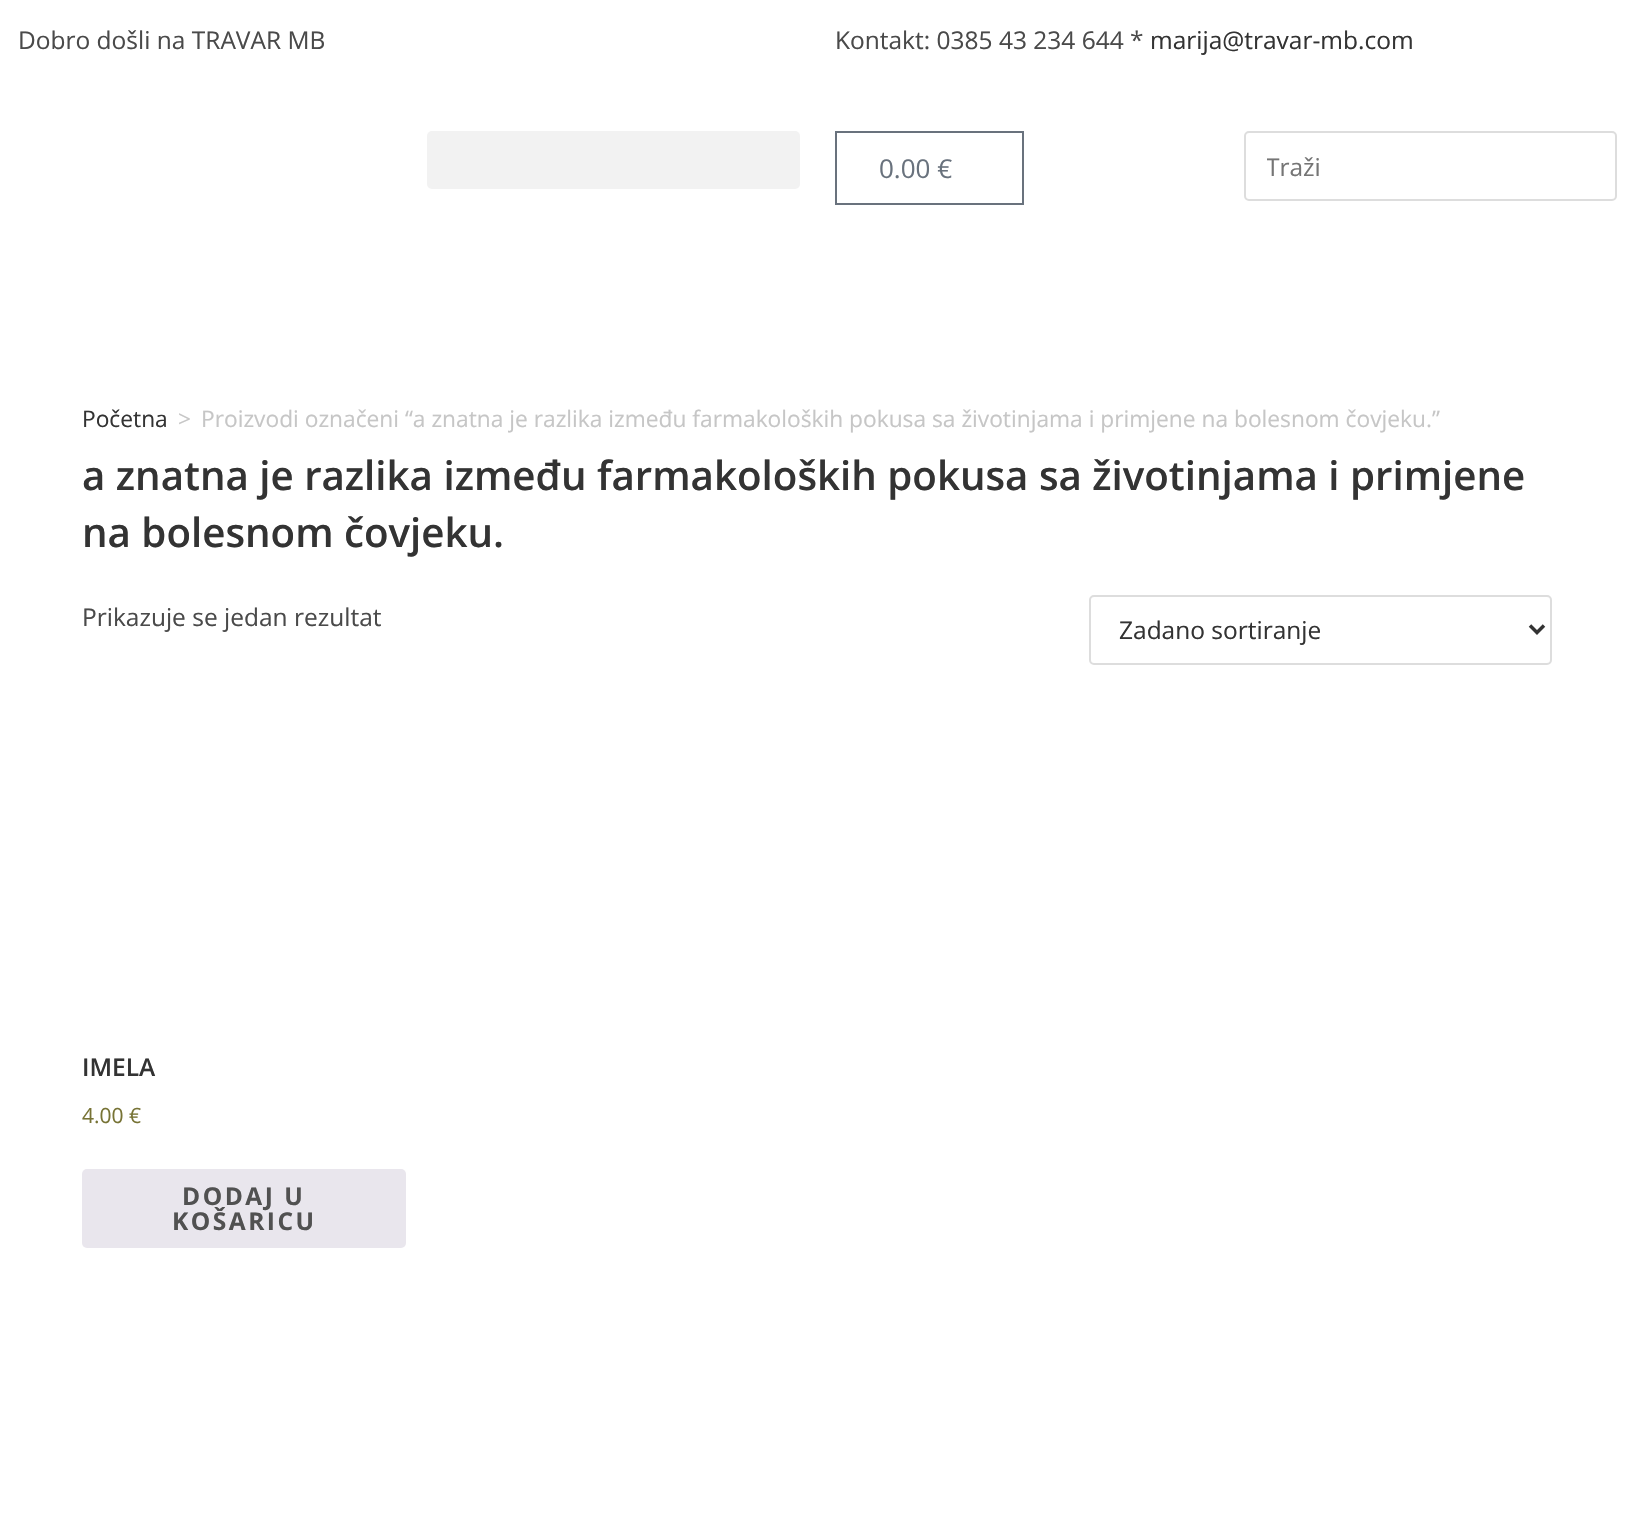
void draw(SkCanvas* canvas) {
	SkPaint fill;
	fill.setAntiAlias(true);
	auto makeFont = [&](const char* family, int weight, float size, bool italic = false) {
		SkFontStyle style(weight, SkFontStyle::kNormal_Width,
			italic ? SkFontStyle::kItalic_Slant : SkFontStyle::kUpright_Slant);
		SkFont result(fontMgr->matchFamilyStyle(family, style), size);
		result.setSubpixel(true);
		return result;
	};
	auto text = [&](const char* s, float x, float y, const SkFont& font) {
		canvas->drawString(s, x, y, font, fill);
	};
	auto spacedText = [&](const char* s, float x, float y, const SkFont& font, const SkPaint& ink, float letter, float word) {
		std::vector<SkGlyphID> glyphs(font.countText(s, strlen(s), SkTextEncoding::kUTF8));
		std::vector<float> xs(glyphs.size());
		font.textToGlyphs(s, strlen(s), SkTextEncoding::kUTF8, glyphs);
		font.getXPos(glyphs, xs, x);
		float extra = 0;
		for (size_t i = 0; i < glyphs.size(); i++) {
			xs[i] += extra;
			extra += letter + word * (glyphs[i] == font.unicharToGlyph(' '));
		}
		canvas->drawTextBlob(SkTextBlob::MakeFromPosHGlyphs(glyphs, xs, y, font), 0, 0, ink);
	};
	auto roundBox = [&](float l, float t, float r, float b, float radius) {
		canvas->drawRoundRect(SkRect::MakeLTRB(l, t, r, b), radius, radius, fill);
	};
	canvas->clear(0xFFFFFFFF);
	fill.setColor(0xFFF2F2F2);
	roundBox(427, 131, 800, 189, 5);
	fill.setStyle(SkPaint::kStroke_Style);
	fill.setStrokeWidth(2);
	fill.setColor(0xFF69727D);
	canvas->drawRect(SkRect::MakeLTRB(836, 132, 1023, 204), fill);
	fill.setColor(0xFFDDDDDD);
	canvas->drawRoundRect(SkRect::MakeLTRB(1245, 132, 1616, 200), 4, 4, fill);
	canvas->drawRoundRect(SkRect::MakeLTRB(1090, 596, 1551, 664), 4, 4, fill);
	fill.setStrokeWidth(3.5f);
	fill.setColor(0xFF333333);
	canvas->drawPath(SkPathBuilder().moveTo(1530, 625.5f).lineTo(1537, 632.5f).lineTo(1544, 625.5f).detach(), fill);
	fill.setStyle(SkPaint::kFill_Style);
	fill.setColor(0xFFE9E6ED);
	roundBox(82, 1169, 406, 1248, 5);
	auto font1 = makeFont("Open Sans", 400, 24.5f);
	fill.setColor(0xFF4A4A4A);
	text("Dobro došli na TRAVAR MB", 18, 49, font1);
	text("Kontakt: 0385 43 234 644 *", 835, 49, font1);
	fill.setColor(0xFF333333);
	text("marija@travar-mb.com", 1150, 49, font1);
	auto font2 = makeFont("Open Sans", 400, 26);
	fill.setColor(0xFF69727D);
	text("0.00 €", 879, 178, font2);
	canvas->save();
	canvas->clipRect(SkRect::MakeLTRB(1267, 151, 1594, 184));
	fill.setColor(0xFF757575);
	text("Traži", 1266, 176, font1);
	canvas->restore();
	auto font3 = makeFont("Open Sans", 400, 22.75f);
	fill.setColor(0xFF333333);
	text("Početna", 82, 427, font3);
	fill.setColor(0xFFC6C6C6);
	text(">", 178, 427, font3);
	text("Proizvodi označeni “a znatna je razlika između farmakoloških pokusa sa životinjama i primjene na bolesnom čovjeku.”", 201, 427, font3);
	auto font4 = makeFont("Open Sans", 600, 40.25f);
	fill.setColor(0xFF333333);
	text("a znatna je razlika između farmakoloških pokusa sa životinjama i primjene", 82, 490, font4);
	text("na bolesnom čovjeku.", 82, 547, font4);
	fill.setColor(0xFF4A4A4A);
	text("Prikazuje se jedan rezultat", 82, 626, font1);
	fill.setColor(0xFF333333);
	text("Zadano sortiranje", 1119, 639, font1);
	auto font5 = makeFont("Open Sans", 600, 24.5f);
	text("IMELA", 82, 1076, font5);
	auto font6 = makeFont("Open Sans", 400, 21);
	fill.setColor(0xFF777335);
	text("4.00 €", 82, 1123, font6);
	auto font7 = makeFont("Open Sans", 700, 24.5f);
	fill.setColor(0xFF515151);
	spacedText("DODAJ U", 182, 1205, font7, fill, 2.5f, 0);
	spacedText("KOŠARICU", 172, 1230, font7, fill, 2.5f, 0);
}
